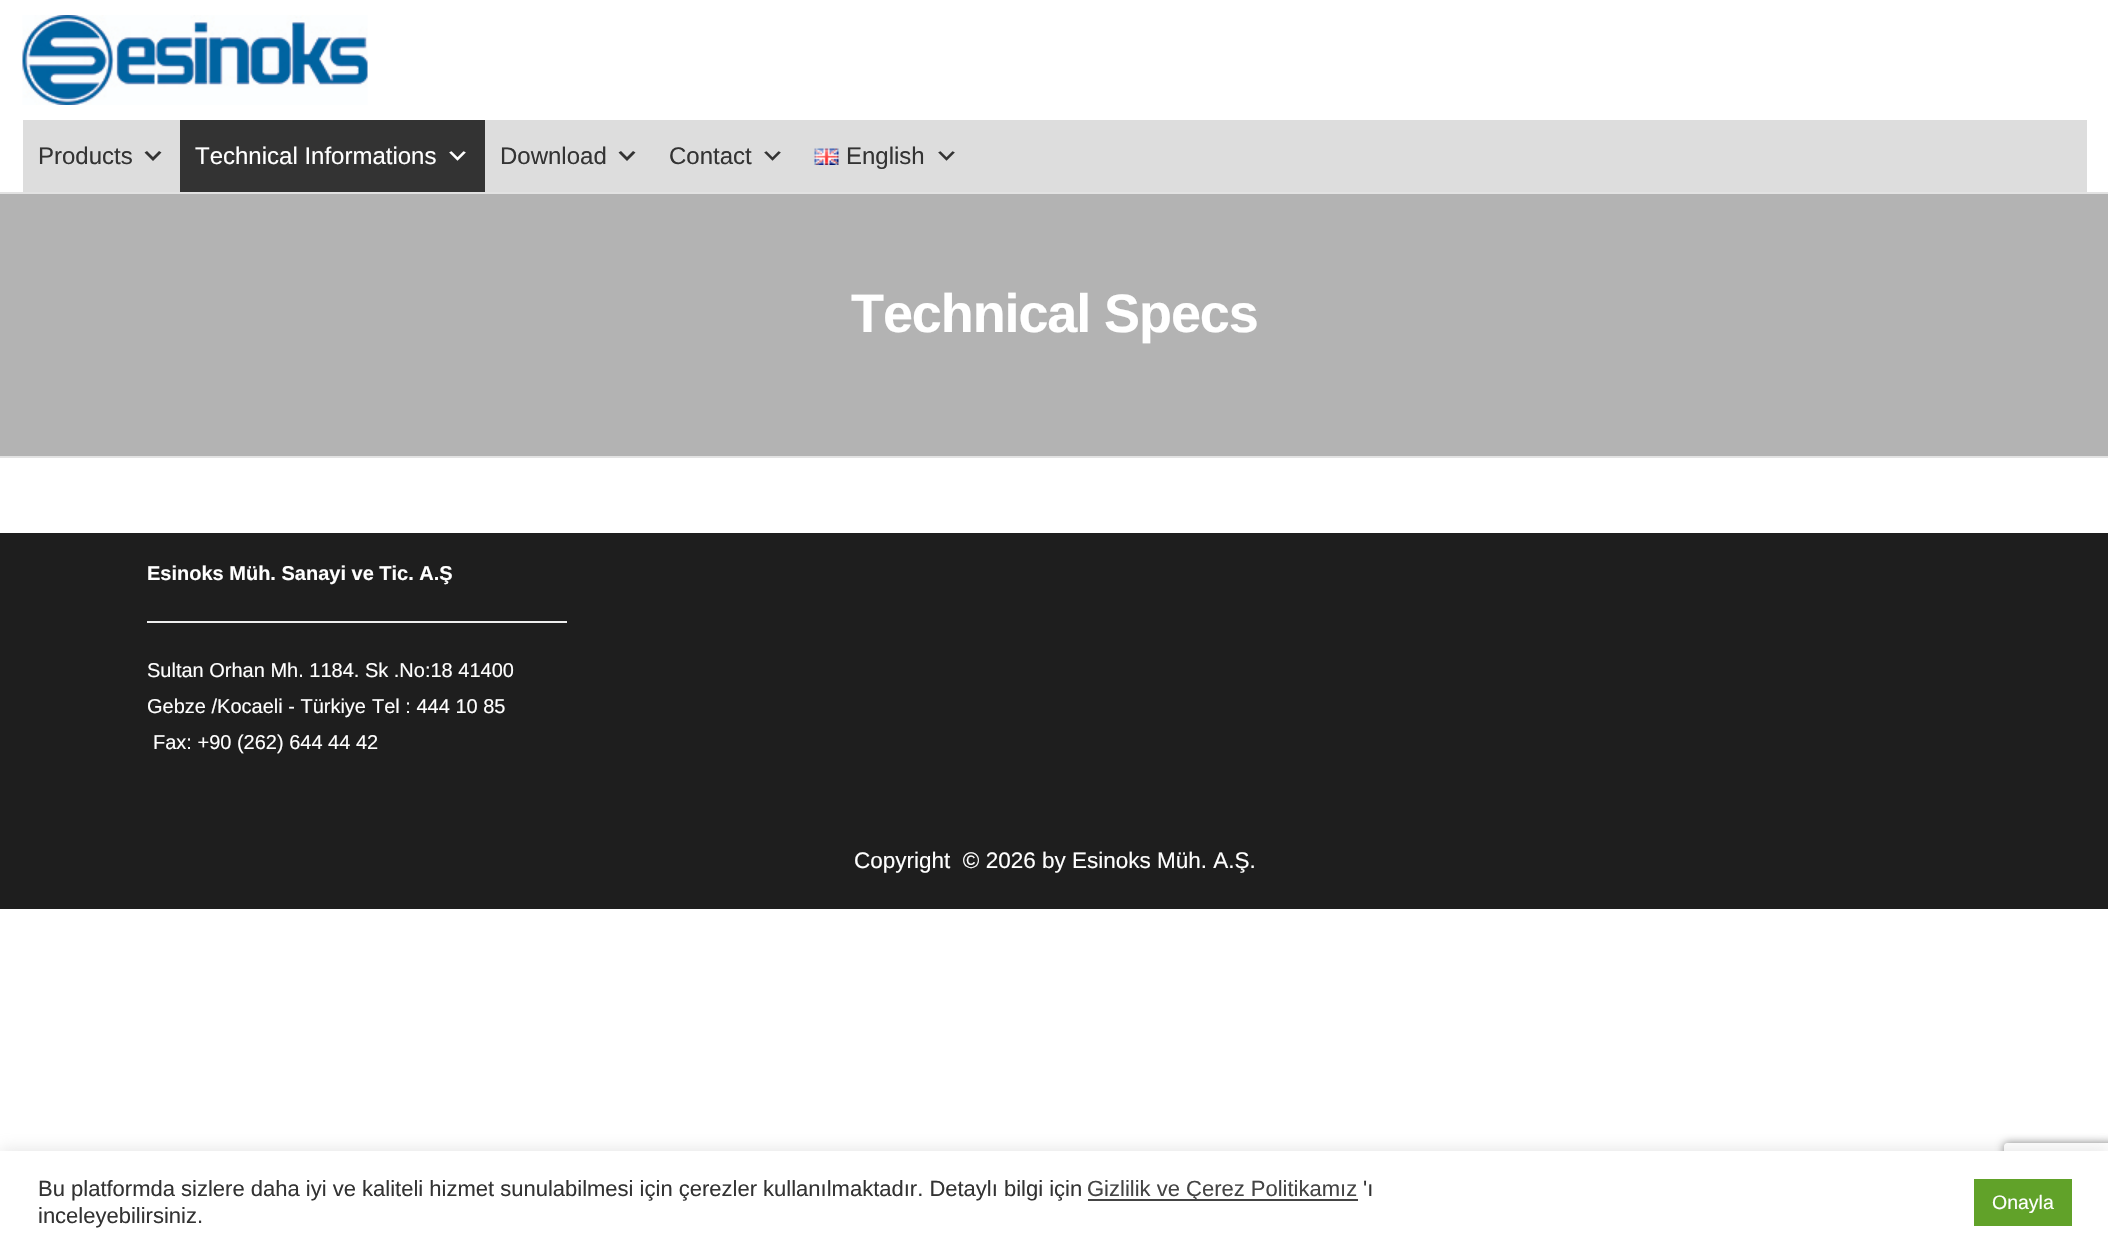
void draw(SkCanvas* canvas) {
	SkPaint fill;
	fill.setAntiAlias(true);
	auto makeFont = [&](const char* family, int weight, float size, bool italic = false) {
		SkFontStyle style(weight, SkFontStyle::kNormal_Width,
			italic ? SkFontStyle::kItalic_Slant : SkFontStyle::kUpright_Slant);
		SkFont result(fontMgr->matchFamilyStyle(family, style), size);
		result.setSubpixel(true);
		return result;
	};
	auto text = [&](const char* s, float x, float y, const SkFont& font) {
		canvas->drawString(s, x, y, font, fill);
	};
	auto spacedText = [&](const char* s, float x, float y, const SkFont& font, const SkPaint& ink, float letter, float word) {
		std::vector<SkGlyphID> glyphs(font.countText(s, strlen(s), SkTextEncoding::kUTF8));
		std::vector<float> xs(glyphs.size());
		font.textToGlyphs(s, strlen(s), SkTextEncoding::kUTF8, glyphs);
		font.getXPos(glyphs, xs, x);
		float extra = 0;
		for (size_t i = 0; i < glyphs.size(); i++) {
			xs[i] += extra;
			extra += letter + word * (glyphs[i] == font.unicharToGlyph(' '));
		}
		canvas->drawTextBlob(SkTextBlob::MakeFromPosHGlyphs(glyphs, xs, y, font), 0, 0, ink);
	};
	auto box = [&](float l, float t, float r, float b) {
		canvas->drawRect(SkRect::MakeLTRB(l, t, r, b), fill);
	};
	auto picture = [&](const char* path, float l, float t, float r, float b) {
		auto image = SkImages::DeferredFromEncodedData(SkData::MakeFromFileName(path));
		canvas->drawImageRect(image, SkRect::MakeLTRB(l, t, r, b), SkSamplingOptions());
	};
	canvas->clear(0xFFFFFFFF);
	fill.setColor(0xFFE2E2E2);
	box(0, 192, 2108, 194);
	picture("image0.png", 22, 15, 368, 105);
	fill.setColor(0xFFDDDDDD);
	box(23, 120, 2087, 192);
	fill.setColor(0xFF333333);
	canvas->drawPath(SkPathBuilder().moveTo(147, 151).lineTo(153, 157).lineTo(159, 151).lineTo(161.5f, 152.5f).lineTo(153, 161).lineTo(144.5f, 152.5f).close().detach(), fill);
	box(180, 120, 485, 192);
	picture("image1.png", 449, 151, 466, 161);
	canvas->drawPath(SkPathBuilder().moveTo(621, 151).lineTo(627, 157).lineTo(633, 151).lineTo(635.5f, 152.5f).lineTo(627, 161).lineTo(618.5f, 152.5f).close().detach(), fill);
	picture("image2.png", 764, 151, 781, 161);
	picture("image3.png", 814, 148, 839, 165);
	picture("image2.png", 938, 151, 955, 161);
	fill.setColor(0xFFE2E2E2);
	box(0, 456, 2108, 458);
	fill.setColor(0xFFB3B3B3);
	box(0, 194, 2108, 456);
	fill.setColor(0xFF1E1E1E);
	box(0, 533, 2108, 909);
	fill.setColor(0xFFEEEEEE);
	box(147, 621, 567, 623);
	canvas->save();
	canvas->clipPath(SkPathBuilder(SkPathFillType::kEvenOdd).moveTo(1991, 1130).lineTo(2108, 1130).lineTo(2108, 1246).lineTo(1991, 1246).close().moveTo(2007, 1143).lineTo(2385, 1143).cubicTo(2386.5f, 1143, 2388, 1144.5f, 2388, 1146).lineTo(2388, 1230).cubicTo(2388, 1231.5f, 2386.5f, 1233, 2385, 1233).lineTo(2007, 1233).cubicTo(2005.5f, 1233, 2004, 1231.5f, 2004, 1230).lineTo(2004, 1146).cubicTo(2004, 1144.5f, 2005.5f, 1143, 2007, 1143).close().detach(), true);
	fill.setColor(0xFF808080);
	fill.setMaskFilter(SkMaskFilter::MakeBlur(kNormal_SkBlurStyle, 4));
	canvas->drawRoundRect(SkRect::MakeLTRB(2004, 1143, 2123, 1233), 3, 3, fill);
	fill.setMaskFilter(nullptr);
	canvas->restore();
	fill.setColor(0x4DACABAB);
	fill.setMaskFilter(SkMaskFilter::MakeBlur(kNormal_SkBlurStyle, 7.5f));
	canvas->drawRect(SkRect::MakeLTRB(0, 1149, 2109, 1253), fill);
	fill.setMaskFilter(nullptr);
	fill.setColor(0xFFFFFFFF);
	box(0, 1151, 2108, 1254);
	fill.setColor(0xFF444444);
	box(1088, 1199, 1358, 1201);
	fill.setColor(0xFF61A229);
	box(1974, 1179, 2072, 1226);
	auto font1 = makeFont("Liberation Sans", 400, 24);
	fill.setColor(0xFF333333);
	text("Products", 38, 164, font1);
	fill.setColor(0xFFFFFFFF);
	text("Technical Informations", 195, 164, font1);
	fill.setColor(0xFF333333);
	text("Download", 500, 164, font1);
	text("Contact", 669, 164, font1);
	text("English", 846, 164, font1);
	auto font2 = makeFont("Liberation Sans", 700, 54);
	fill.setColor(0xFFFFFFFF);
	spacedText("Technical Specs", 851, 332, font2, fill, -1.1f, 0);
	auto font3 = makeFont("Liberation Sans", 700, 20);
	text("Esinoks Müh. Sanayi ve Tic. A.Ş", 147, 580, font3);
	auto font4 = makeFont("Liberation Sans", 400, 20);
	text("Sultan Orhan Mh. 1184. Sk .No:18 41400", 147, 677, font4);
	text("Gebze /Kocaeli - Türkiye", 147, 713, font4);
	text("Tel : 444 10 85", 372, 713, font4);
	text("Fax: +90 (262) 644 44 42", 153, 749, font4);
	auto font5 = makeFont("Liberation Sans", 400, 22.5f);
	text("Copyright  © 2026 by Esinoks Müh. A.Ş.", 854, 868, font5);
	auto font6 = makeFont("Liberation Sans", 400, 22);
	fill.setColor(0xFF333333);
	text("Bu platformda sizlere daha iyi ve kaliteli hizmet sunulabilmesi için çerezler kullanılmaktadır. Detaylı bilgi için", 38, 1196, font6);
	fill.setColor(0xFF444444);
	text("Gizlilik ve Çerez Politikamız", 1087, 1196, font6);
	fill.setColor(0xFF333333);
	text("'ı", 1363, 1196, font6);
	text("inceleyebilirsiniz.", 38, 1223, font6);
	auto font7 = makeFont("Liberation Sans", 400, 19.5f);
	fill.setColor(0xFFFFFFFF);
	text("Onayla", 1992, 1209, font7);
}
